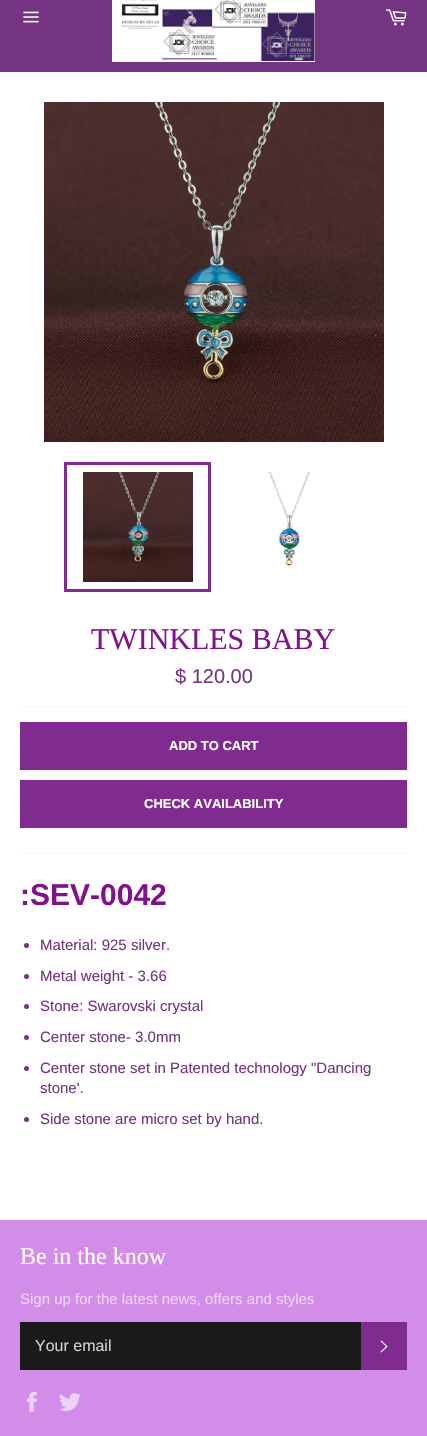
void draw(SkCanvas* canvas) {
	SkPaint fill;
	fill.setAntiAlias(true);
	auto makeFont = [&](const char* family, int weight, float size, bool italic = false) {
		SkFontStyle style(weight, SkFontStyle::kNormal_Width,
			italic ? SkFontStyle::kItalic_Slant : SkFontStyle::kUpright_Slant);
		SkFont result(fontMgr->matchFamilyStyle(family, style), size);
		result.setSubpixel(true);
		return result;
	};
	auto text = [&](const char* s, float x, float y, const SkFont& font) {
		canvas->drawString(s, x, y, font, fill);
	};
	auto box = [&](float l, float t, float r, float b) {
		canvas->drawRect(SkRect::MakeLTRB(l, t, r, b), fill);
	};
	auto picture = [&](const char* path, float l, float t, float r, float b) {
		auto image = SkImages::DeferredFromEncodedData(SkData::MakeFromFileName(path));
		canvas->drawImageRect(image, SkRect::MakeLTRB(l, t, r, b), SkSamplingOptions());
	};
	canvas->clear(0xFFFFFFFF);
	fill.setColor(0xFF753481);
	box(0, 0, 427, 72);
	picture("image0.png", 23, 11, 39, 23);
	picture("image1.png", 112, 0, 315, 62);
	picture("image2.png", 385, 9, 407, 26);
	picture("image3.png", 44, 102, 384, 442);
	picture("image4.png", 83, 472, 193, 582);
	fill.setStyle(SkPaint::kStroke_Style);
	fill.setStrokeWidth(3);
	fill.setColor(0xFF802B8F);
	canvas->drawRect(SkRect::MakeLTRB(65.5f, 463.5f, 209.5f, 590.5f), fill);
	picture("image5.png", 268, 472, 310, 566);
	fill.setStyle(SkPaint::kFill_Style);
	fill.setColor(0xFFF7F7F7);
	box(20, 706, 407, 707);
	fill.setColor(0xFF802B8F);
	box(20, 722, 407, 770);
	box(20, 780, 407, 828);
	fill.setColor(0xFFF7F7F7);
	box(20, 853, 407, 854);
	fill.setColor(0xFF753481);
	canvas->drawCircle(26.5f, 945.5f, 2.5f, fill);
	canvas->drawCircle(26.5f, 976.5f, 2.5f, fill);
	canvas->drawCircle(26.5f, 1006.5f, 2.5f, fill);
	canvas->drawCircle(26.5f, 1037.5f, 2.5f, fill);
	canvas->drawCircle(26.5f, 1068.5f, 2.5f, fill);
	canvas->drawCircle(26.5f, 1119.5f, 2.5f, fill);
	fill.setColor(0xFFD28DE9);
	box(0, 1220, 427, 1436);
	fill.setColor(0xFF1A1A1A);
	box(20, 1322, 361, 1370);
	fill.setColor(0xFF802B8F);
	box(361, 1322, 407, 1370);
	picture("image6.png", 380, 1340, 388, 1353);
	picture("image7.png", 27, 1392, 37, 1412);
	picture("image8.png", 59, 1393, 81, 1411);
	auto font1 = makeFont("Liberation Serif", 400, 30);
	fill.setColor(0xFF82128C);
	text("TWINKLES BABY", 91, 649, font1);
	auto font2 = makeFont("Liberation Sans", 400, 20);
	fill.setColor(0xFF753481);
	text("$ 120.00", 175, 683, font2);
	auto font3 = makeFont("Liberation Sans", 700, 13);
	fill.setColor(0xFFFFFFFF);
	text("ADD TO CART", 169, 750, font3);
	text("CHECK AVAILABILITY", 144, 808, font3);
	auto font4 = makeFont("Liberation Sans", 700, 30);
	fill.setColor(0xFF82128C);
	text(":SEV-0042", 20, 905, font4);
	auto font5 = makeFont("Liberation Sans", 400, 15);
	fill.setColor(0xFF753481);
	text("Material: 925 silver.", 40, 950, font5);
	text("Metal weight - 3.66", 40, 981, font5);
	text("Stone: Swarovski crystal", 40, 1011, font5);
	text("Center stone- 3.0mm", 40, 1042, font5);
	text("Center stone set in Patented technology \"Dancing", 40, 1073, font5);
	text("stone'.", 40, 1093, font5);
	text("Side stone are micro set by hand.", 40, 1124, font5);
	auto font6 = makeFont("Liberation Serif", 400, 24);
	fill.setColor(0xFFFFFFFF);
	text("Be in the know", 20, 1264, font6);
	fill.setColor(0xFFEDD1F6);
	text("Sign up for the latest news, offers and styles", 20, 1304, font5);
	auto font7 = makeFont("Liberation Sans", 400, 16);
	fill.setColor(0xFFD1D1D1);
	text("Your email", 35, 1351, font7);
}
